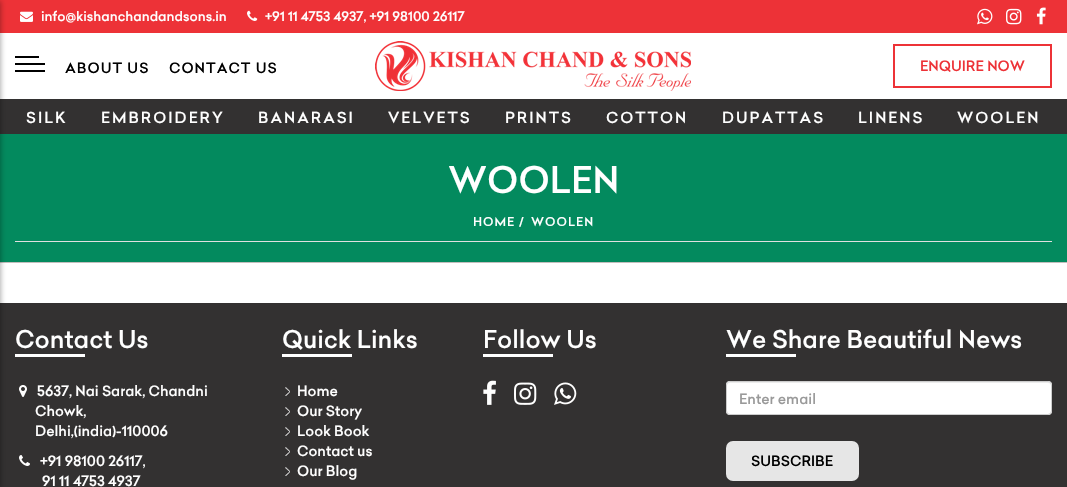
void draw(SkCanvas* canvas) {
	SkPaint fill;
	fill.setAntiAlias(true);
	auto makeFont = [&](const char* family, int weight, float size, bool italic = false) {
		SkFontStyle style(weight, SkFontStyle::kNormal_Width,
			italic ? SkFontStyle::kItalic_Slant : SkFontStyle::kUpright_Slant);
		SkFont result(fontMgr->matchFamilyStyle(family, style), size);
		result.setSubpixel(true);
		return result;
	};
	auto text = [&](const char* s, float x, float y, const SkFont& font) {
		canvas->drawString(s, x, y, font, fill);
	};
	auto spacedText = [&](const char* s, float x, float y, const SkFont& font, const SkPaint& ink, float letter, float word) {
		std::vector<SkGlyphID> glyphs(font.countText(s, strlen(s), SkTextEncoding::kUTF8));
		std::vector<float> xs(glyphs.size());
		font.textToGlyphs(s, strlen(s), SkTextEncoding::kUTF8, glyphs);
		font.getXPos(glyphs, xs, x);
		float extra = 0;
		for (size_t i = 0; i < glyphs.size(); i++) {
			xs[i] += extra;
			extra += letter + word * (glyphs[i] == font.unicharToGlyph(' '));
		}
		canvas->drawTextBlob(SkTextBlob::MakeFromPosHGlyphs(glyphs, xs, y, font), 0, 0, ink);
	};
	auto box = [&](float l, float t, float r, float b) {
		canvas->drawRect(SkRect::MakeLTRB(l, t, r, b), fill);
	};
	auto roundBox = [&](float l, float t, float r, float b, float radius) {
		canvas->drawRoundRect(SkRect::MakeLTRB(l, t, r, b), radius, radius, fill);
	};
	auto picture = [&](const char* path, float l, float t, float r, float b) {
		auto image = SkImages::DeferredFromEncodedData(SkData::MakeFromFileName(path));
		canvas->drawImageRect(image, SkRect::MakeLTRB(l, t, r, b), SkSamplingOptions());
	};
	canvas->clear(0xFFFFFFFF);
	fill.setColor(0xFFED3237);
	box(0, 0, 1067, 33);
	fill.setColor(0xFF333131);
	box(0, 99, 1067, 134);
	fill.setColor(0xFFC3BDBD);
	box(0, 262, 1067, 263);
	fill.setColor(0xFF038A5E);
	box(0, 134, 1067, 262);
	fill.setColor(0xFF333131);
	box(0, 303, 1067, 487);
	fill.setColor(0x4D000000);
	fill.setMaskFilter(SkMaskFilter::MakeBlur(kNormal_SkBlurStyle, 2.5f));
	canvas->drawRect(SkRect::MakeLTRB(-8, 1, 1, 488), fill);
	fill.setMaskFilter(nullptr);
	picture("image0.png", 20, 11, 33, 22);
	picture("image1.png", 247, 10, 258, 21);
	picture("image2.png", 977, 8, 993, 25);
	picture("image3.png", 1006, 8, 1022, 25);
	picture("image4.png", 1036, 7, 1046, 25);
	fill.setColor(0xFF000000);
	box(15, 56, 39, 58);
	box(15, 63, 45, 65);
	box(15, 70, 45, 72);
	picture("image5.png", 375, 41, 691, 91);
	fill.setStyle(SkPaint::kStroke_Style);
	fill.setStrokeWidth(2);
	fill.setColor(0xFFED3237);
	canvas->drawRect(SkRect::MakeLTRB(894, 45, 1051, 87), fill);
	fill.setStyle(SkPaint::kFill_Style);
	fill.setColor(0xFFE0E0E0);
	box(15, 241, 1052, 242);
	fill.setColor(0xFFFFFFFF);
	box(15, 354, 85, 357);
	picture("image6.png", 19, 385, 27, 397);
	picture("image7.png", 19, 455, 30, 466);
	box(282, 354, 352, 357);
	picture("image8.png", 285, 387, 290, 396);
	picture("image8.png", 285, 407, 290, 416);
	picture("image8.png", 285, 427, 290, 436);
	picture("image8.png", 285, 447, 290, 456);
	picture("image8.png", 285, 467, 290, 476);
	box(483, 354, 553, 357);
	picture("image9.png", 483, 380, 496, 405);
	picture("image10.png", 514, 382, 537, 405);
	picture("image11.png", 554, 382, 577, 405);
	box(726, 354, 796, 357);
	roundBox(726, 381, 1052, 415, 4);
	fill.setColor(0xFFECECEC);
	canvas->drawPath(SkPathBuilder().moveTo(730, 383).lineTo(1048, 383).cubicTo(1050, 383, 1051, 384, 1051, 386).cubicTo(1051, 384, 1050, 382, 1048, 382).lineTo(730, 382).cubicTo(728, 382, 727, 384, 727, 386).cubicTo(727, 384, 728, 383, 730, 383).close().detach(), fill);
	fill.setStyle(SkPaint::kStroke_Style);
	fill.setStrokeWidth(1);
	fill.setColor(0xFFCCCCCC);
	canvas->drawRoundRect(SkRect::MakeLTRB(726.5f, 381.5f, 1051.5f, 414.5f), 3.5f, 3.5f, fill);
	fill.setStyle(SkPaint::kFill_Style);
	fill.setColor(0xFFE6E6E6);
	roundBox(726, 441, 859, 481, 7);
	auto font1 = makeFont("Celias", 500, 13);
	fill.setColor(0xFFFFFFFF);
	text("info@kishanchandandsons.in", 41, 21, font1);
	text("+91 11 4753 4937, +91 98100 26117", 265, 21, font1);
	auto font2 = makeFont("Celias", 500, 14);
	fill.setColor(0xFF000000);
	spacedText("ABOUT US", 65, 73, font2, fill, 1, 0);
	spacedText("CONTACT US", 169, 73, font2, fill, 1, 0);
	fill.setColor(0xFFED3237);
	text("ENQUIRE NOW", 920, 71, font2);
	auto font3 = makeFont("Celias", 500, 15);
	fill.setColor(0xFFFFFFFF);
	spacedText("SILK", 26, 123, font3, fill, 2, 0);
	spacedText("EMBROIDERY", 101, 123, font3, fill, 2, 0);
	spacedText("BANARASI", 258, 123, font3, fill, 2, 0);
	spacedText("VELVETS", 388, 123, font3, fill, 2, 0);
	spacedText("PRINTS", 505, 123, font3, fill, 2, 0);
	spacedText("COTTON", 606, 123, font3, fill, 2, 0);
	spacedText("DUPATTAS", 722, 123, font3, fill, 2, 0);
	spacedText("LINENS", 858, 123, font3, fill, 2, 0);
	spacedText("WOOLEN", 957, 123, font3, fill, 2, 0);
	auto font4 = makeFont("Celias", 500, 36);
	text("WOOLEN", 448, 193, font4);
	auto font5 = makeFont("Celias", 500, 12);
	spacedText("HOME", 473, 226, font5, fill, 1, 0);
	spacedText("/", 519, 226, font5, fill, 1, 0);
	spacedText("WOOLEN", 531, 226, font5, fill, 1, 0);
	auto font6 = makeFont("Celias", 500, 24);
	text("Contact Us", 15, 348, font6);
	text("5637, Nai Sarak, Chandni", 37, 396, font2);
	text("Chowk,", 35, 416, font2);
	text("Delhi,(india)-110006", 35, 436, font2);
	text("+91 98100 26117,", 40, 466, font2);
	text("91 11 4753 4937", 42, 486, font2);
	text("Quick Links", 282, 348, font6);
	text("Home", 297, 396, font2);
	text("Our Story", 297, 416, font2);
	text("Look Book", 297, 436, font2);
	text("Contact us", 297, 456, font2);
	text("Our Blog", 297, 476, font2);
	text("Follow Us", 483, 348, font6);
	text("We Share Beautiful News", 726, 348, font6);
	fill.setColor(0xFF999999);
	text("Enter email", 739, 404, font2);
	fill.setColor(0xFF000000);
	text("SUBSCRIBE", 751, 466, font2);
}
